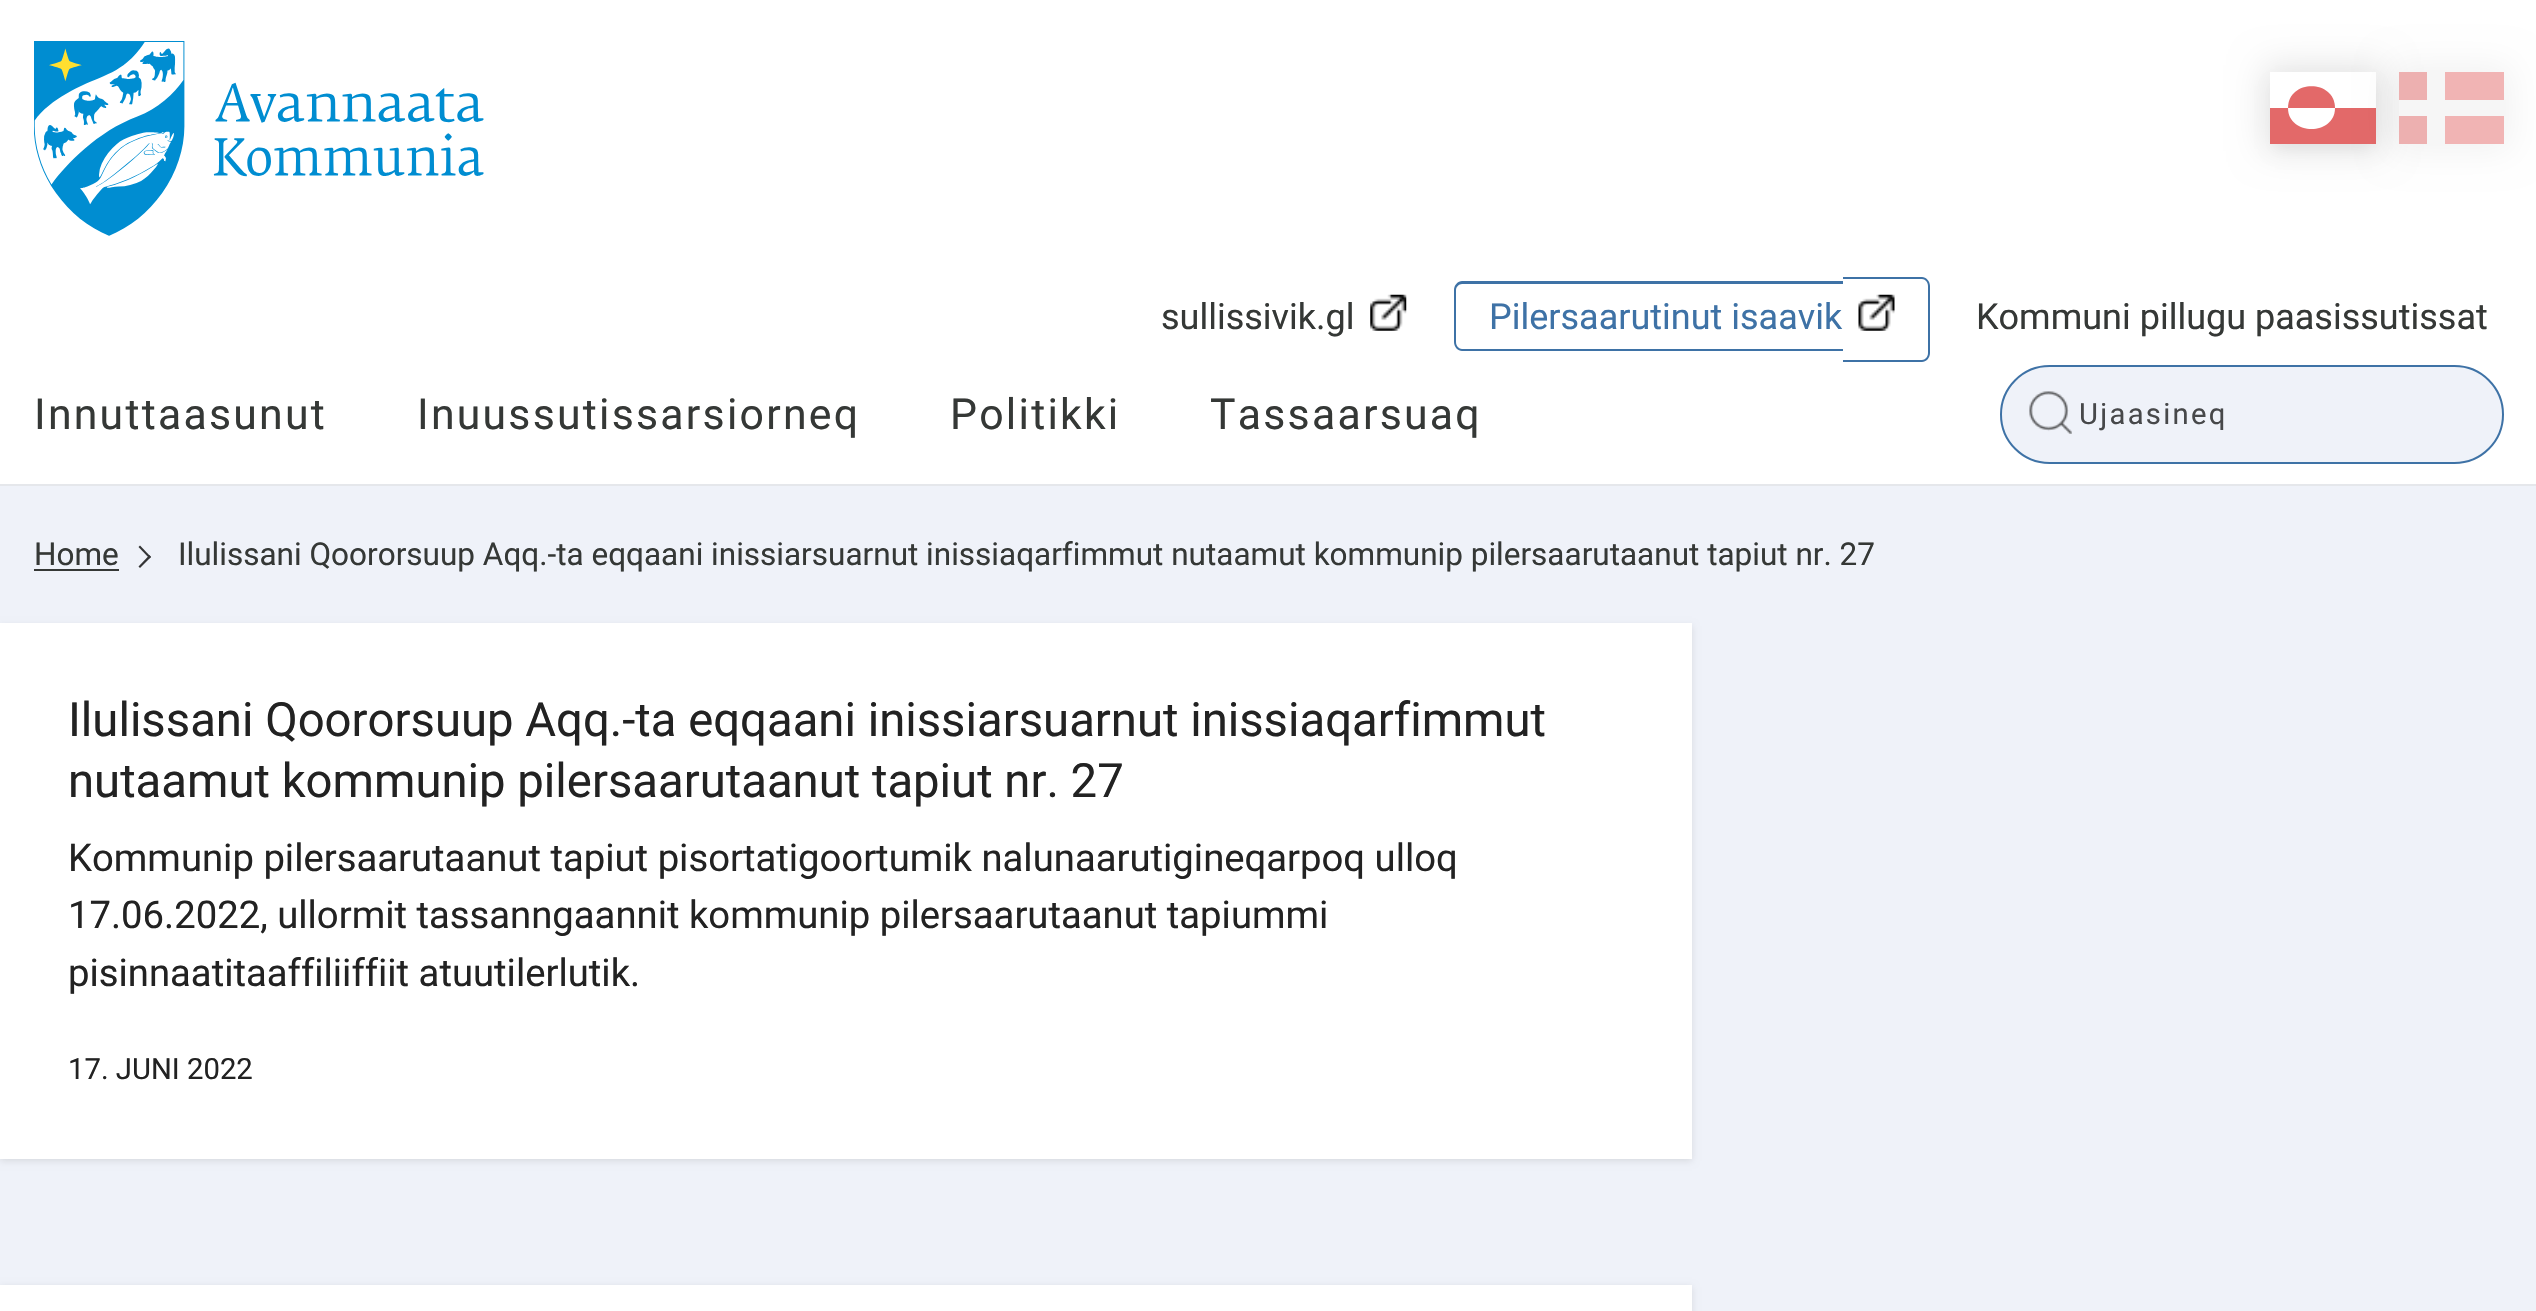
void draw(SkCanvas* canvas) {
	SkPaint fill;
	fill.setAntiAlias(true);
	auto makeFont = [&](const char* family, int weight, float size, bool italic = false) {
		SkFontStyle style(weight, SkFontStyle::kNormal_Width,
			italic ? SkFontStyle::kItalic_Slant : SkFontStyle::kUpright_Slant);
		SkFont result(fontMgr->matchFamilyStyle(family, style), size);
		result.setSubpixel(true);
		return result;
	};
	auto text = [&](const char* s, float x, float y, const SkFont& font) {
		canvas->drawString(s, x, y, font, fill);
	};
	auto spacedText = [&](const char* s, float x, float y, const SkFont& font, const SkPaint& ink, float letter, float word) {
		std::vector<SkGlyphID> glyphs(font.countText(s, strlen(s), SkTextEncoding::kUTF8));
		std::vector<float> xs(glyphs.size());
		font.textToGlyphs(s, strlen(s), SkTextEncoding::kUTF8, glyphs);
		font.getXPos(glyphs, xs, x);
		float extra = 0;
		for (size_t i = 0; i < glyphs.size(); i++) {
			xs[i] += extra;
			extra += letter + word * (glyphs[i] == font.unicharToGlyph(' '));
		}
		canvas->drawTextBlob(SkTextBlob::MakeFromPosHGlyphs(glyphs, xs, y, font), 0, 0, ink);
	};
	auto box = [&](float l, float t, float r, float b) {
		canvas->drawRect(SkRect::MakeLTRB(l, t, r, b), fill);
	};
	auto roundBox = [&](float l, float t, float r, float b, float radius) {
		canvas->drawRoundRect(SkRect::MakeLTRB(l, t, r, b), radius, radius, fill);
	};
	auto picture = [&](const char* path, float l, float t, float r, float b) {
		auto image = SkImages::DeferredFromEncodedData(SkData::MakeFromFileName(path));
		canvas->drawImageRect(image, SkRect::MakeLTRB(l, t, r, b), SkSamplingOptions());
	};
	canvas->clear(0xFFFFFFFF);
	picture("image0.png", 34, 41, 484, 236);
	fill.setColor(0x0D000000);
	fill.setMaskFilter(SkMaskFilter::MakeBlur(kNormal_SkBlurStyle, 7));
	canvas->drawRect(SkRect::MakeLTRB(2275, 86, 2372, 149), fill);
	fill.setMaskFilter(nullptr);
	fill.setColor(0x1A000000);
	fill.setMaskFilter(SkMaskFilter::MakeBlur(kNormal_SkBlurStyle, 17));
	canvas->drawRect(SkRect::MakeLTRB(2264, 65, 2383, 151), fill);
	fill.setMaskFilter(nullptr);
	fill.setColor(0xFFFFFFFF);
	box(2270, 72, 2376, 108);
	canvas->save();
	canvas->clipRect(SkRect::MakeLTRB(2270, 72, 2376, 144));
	fill.setColor(0xFFE36969);
	canvas->drawPath(SkPathBuilder().moveTo(2270, 148).lineTo(2270, 108).lineTo(2377, 108).lineTo(2377, 148).lineTo(2270, 148).detach(), fill);
	canvas->restore();
	canvas->drawPath(SkPathBuilder().moveTo(2335, 108).cubicTo(2335, 79, 2288, 79, 2288, 108).close().detach(), fill);
	fill.setColor(0xFFFFFFFF);
	canvas->drawPath(SkPathBuilder().moveTo(2288, 108).cubicTo(2288, 136, 2335, 136, 2335, 108).close().detach(), fill);
	fill.setColor(0x0D000000);
	fill.setMaskFilter(SkMaskFilter::MakeBlur(kNormal_SkBlurStyle, 17));
	canvas->drawRect(SkRect::MakeLTRB(2392, 65, 2511, 151), fill);
	fill.setMaskFilter(nullptr);
	fill.setColor(0xFFF6F6F6);
	box(2399, 72, 2504, 144);
	fill.setColor(0xFFEDB0B0);
	box(2399, 72, 2427, 100);
	box(2399, 116, 2427, 144);
	fill.setColor(0xFFF1B4B4);
	box(2445, 72, 2504, 100);
	box(2445, 116, 2504, 144);
	picture("image1.png", 1370, 294, 1407, 331);
	fill.setColor(0xFF3E72A6);
	canvas->drawPath(SkPathBuilder(SkPathFillType::kEvenOdd).moveTo(1462, 281).lineTo(1843, 281).lineTo(1843, 351).lineTo(1462, 351).cubicTo(1458, 351, 1454, 347, 1454, 342).lineTo(1454, 290).cubicTo(1454, 285, 1458, 281, 1462, 281).close().moveTo(1462, 284).lineTo(1843, 284).lineTo(1843, 349).lineTo(1462, 349).cubicTo(1459, 349, 1456, 346, 1456, 342).lineTo(1456, 290).cubicTo(1456, 287, 1459, 284, 1462, 284).close().detach(), fill);
	canvas->drawPath(SkPathBuilder(SkPathFillType::kEvenOdd).moveTo(1843, 277).lineTo(1922, 277).cubicTo(1926, 277, 1930, 281, 1930, 286).lineTo(1930, 353).cubicTo(1930, 358, 1926, 362, 1922, 362).lineTo(1843, 362).close().moveTo(1843, 279).lineTo(1922, 279).cubicTo(1925, 279, 1928, 282, 1928, 286).lineTo(1928, 353).cubicTo(1928, 357, 1925, 360, 1922, 360).lineTo(1843, 360).close().detach(), fill);
	picture("image2.png", 1858, 294, 1895, 331);
	fill.setColor(0xFFE5E7EB);
	box(0, 484, 2536, 486);
	fill.setColor(0xFFEFF2F9);
	roundBox(2000, 365, 2504, 464, 49.5f);
	picture("image3.png", 2029, 391, 2072, 434);
	fill.setStyle(SkPaint::kStroke_Style);
	fill.setStrokeWidth(2);
	fill.setColor(0xFF3E72A6);
	canvas->drawRoundRect(SkRect::MakeLTRB(2001, 366, 2503, 463), 48.5f, 48.5f, fill);
	fill.setStyle(SkPaint::kFill_Style);
	fill.setColor(0xFFEFF2F9);
	box(0, 486, 2536, 1285);
	fill.setColor(0xFF353836);
	box(34, 569, 119, 571);
	fill.setColor(0xFF343536);
	canvas->drawPath(SkPathBuilder().moveTo(140, 545.5f).lineTo(151, 557).lineTo(149.5f, 558.5f).lineTo(138.5f, 547).close().detach(), fill);
	canvas->drawPath(SkPathBuilder().moveTo(149.5f, 555).lineTo(151, 557).lineTo(140, 568).lineTo(138.5f, 566.5f).close().detach(), fill);
	fill.setColor(0x1A000000);
	fill.setMaskFilter(SkMaskFilter::MakeBlur(kNormal_SkBlurStyle, 3.5f));
	canvas->drawRect(SkRect::MakeLTRB(0, 626, 1692, 1161), fill);
	fill.setMaskFilter(nullptr);
	fill.setColor(0xFFFFFFFF);
	box(0, 623, 1692, 1159);
	fill.setColor(0xFFEFF2F9);
	box(1692, 1285, 2536, 1311);
	fill.setColor(0x1A000000);
	fill.setMaskFilter(SkMaskFilter::MakeBlur(kNormal_SkBlurStyle, 3.5f));
	canvas->drawRect(SkRect::MakeLTRB(0, 1287, 1692, 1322), fill);
	fill.setMaskFilter(nullptr);
	fill.setColor(0xFFFFFFFF);
	box(0, 1285, 1692, 1311);
	auto font1 = makeFont("Roboto", 400, 36);
	fill.setColor(0xFF353836);
	text("sullissivik.gl", 1161, 329, font1);
	fill.setColor(0xFF3E72A6);
	text("Pilersaarutinut isaavik", 1489, 329, font1);
	fill.setColor(0xFF353836);
	text("Kommuni pillugu paasissutissat", 1976, 329, font1);
	auto font2 = makeFont("Roboto", 400, 42.75f);
	spacedText("Innuttaasunut", 34, 429, font2, fill, 2.25f, 0);
	spacedText("Inuussutissarsiorneq", 417, 429, font2, fill, 2.25f, 0);
	spacedText("Politikki", 950, 429, font2, fill, 2.25f, 0);
	spacedText("Tassaarsuaq", 1210, 429, font2, fill, 2.25f, 0);
	auto font3 = makeFont("Roboto", 400, 29.25f);
	fill.setColor(0xFF47484A);
	spacedText("Ujaasineq", 2079, 424, font3, fill, 2.25f, 0);
	auto font4 = makeFont("Roboto", 400, 31.5f);
	fill.setColor(0xFF353836);
	text("Home", 34, 565, font4);
	text("Ilulissani Qoororsuup Aqq.-ta eqqaani inissiarsuarnut inissiaqarfimmut nutaamut kommunip pilersaarutaanut tapiut nr. 27", 178, 565, font4);
	auto font5 = makeFont("Roboto", 400, 47.25f);
	fill.setColor(0xFF222222);
	text("Ilulissani Qoororsuup Aqq.-ta eqqaani inissiarsuarnut inissiaqarfimmut", 68, 736, font5);
	text("nutaamut kommunip pilersaarutaanut tapiut nr. 27", 68, 797, font5);
	auto font6 = makeFont("Roboto", 400, 38.25f);
	text("Kommunip pilersaarutaanut tapiut pisortatigoortumik nalunaarutigineqarpoq ulloq", 68, 871, font6);
	text("17.06.2022, ullormit tassanngaannit kommunip pilersaarutaanut tapiummi", 68, 928, font6);
	text("pisinnaatitaaffiliiffiit atuutilerlutik.", 68, 986, font6);
	text("17. JUNI 2022", 68, 1079, font3);
}
